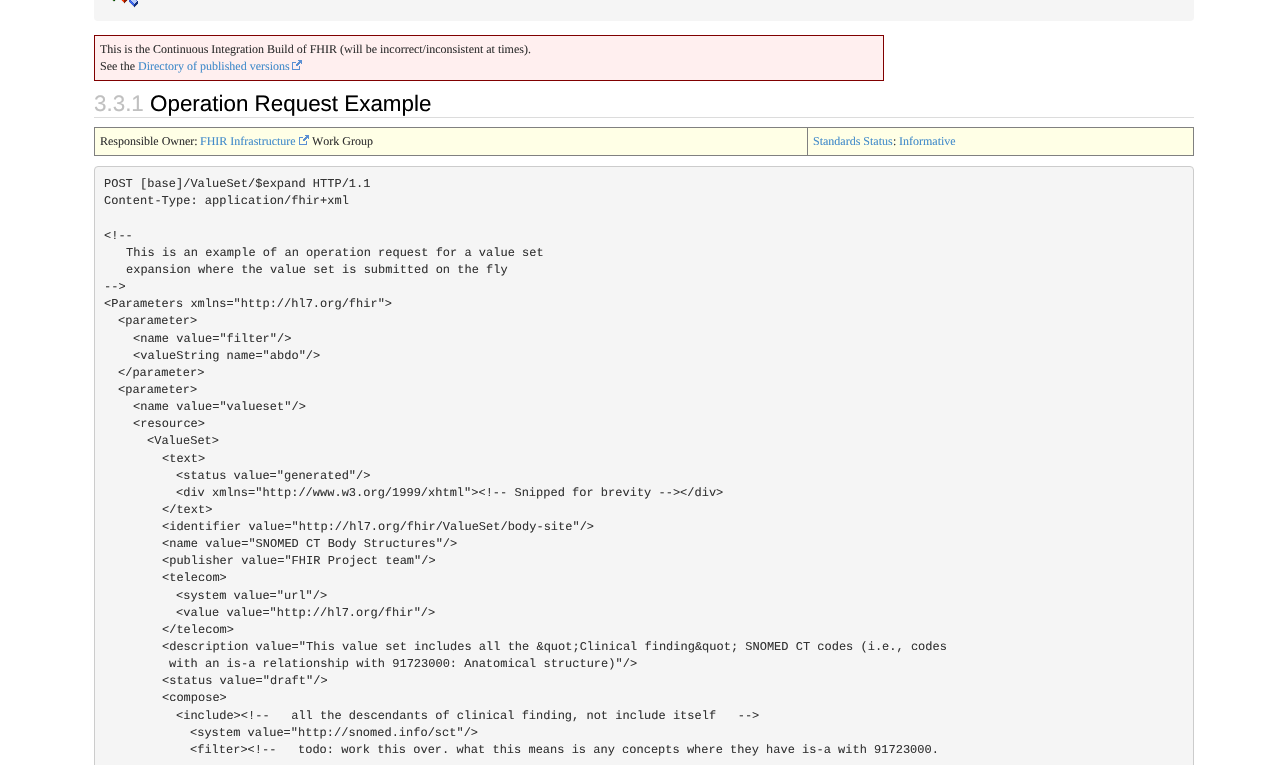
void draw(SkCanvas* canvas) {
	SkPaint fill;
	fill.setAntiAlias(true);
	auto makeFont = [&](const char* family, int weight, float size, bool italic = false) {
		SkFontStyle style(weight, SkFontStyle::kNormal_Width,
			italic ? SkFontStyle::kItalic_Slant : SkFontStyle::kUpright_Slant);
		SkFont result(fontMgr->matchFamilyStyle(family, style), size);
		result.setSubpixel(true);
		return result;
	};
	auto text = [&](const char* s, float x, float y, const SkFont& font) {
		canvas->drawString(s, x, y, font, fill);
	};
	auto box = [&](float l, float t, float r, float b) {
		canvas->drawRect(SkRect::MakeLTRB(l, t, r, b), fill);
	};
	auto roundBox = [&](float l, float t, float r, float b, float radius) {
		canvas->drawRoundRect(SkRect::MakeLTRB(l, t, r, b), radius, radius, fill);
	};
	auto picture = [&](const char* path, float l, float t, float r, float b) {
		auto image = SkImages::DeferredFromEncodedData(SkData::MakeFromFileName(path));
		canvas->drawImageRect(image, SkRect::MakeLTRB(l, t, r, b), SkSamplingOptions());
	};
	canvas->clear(0xFFFFFFFF);
	fill.setColor(0xFFF5F5F5);
	roundBox(94, -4, 1194, 21, 4);
	picture("image0.png", 112, 0, 138, 8);
	fill.setColor(0xFFFFEFEF);
	canvas->drawRect(SkRect::MakeLTRB(94.5f, 35.5f, 883.5f, 80.5f), fill);
	fill.setStyle(SkPaint::kStroke_Style);
	fill.setStrokeWidth(1);
	fill.setColor(0xFF800000);
	canvas->drawRect(SkRect::MakeLTRB(94.5f, 35.5f, 883.5f, 80.5f), fill);
	picture("image1.png", 292, 60, 302, 70);
	fill.setStyle(SkPaint::kFill_Style);
	fill.setColor(0xFFDCDCDC);
	box(94, 117, 1194, 118);
	fill.setColor(0xFFFFFFE6);
	box(95, 128, 807, 155);
	fill.setColor(0xFF808080);
	box(807, 127, 1194, 128);
	box(1193, 127, 1194, 156);
	box(807, 155, 1194, 156);
	box(807, 127, 808, 156);
	box(94, 127, 808, 128);
	box(94, 155, 808, 156);
	box(94, 127, 95, 156);
	picture("image2.png", 299, 135, 309, 145);
	fill.setColor(0xFFFFFFE6);
	box(808, 128, 1193, 155);
	fill.setColor(0xFFF5F5F5);
	canvas->drawRoundRect(SkRect::MakeLTRB(94.5f, 166.5f, 1193.5f, 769.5f), 3.5f, 3.5f, fill);
	fill.setStyle(SkPaint::kStroke_Style);
	fill.setColor(0xFFCCCCCC);
	canvas->drawRoundRect(SkRect::MakeLTRB(94.5f, 166.5f, 1193.5f, 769.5f), 3.5f, 3.5f, fill);
	auto font1 = makeFont("Liberation Serif", 400, 12);
	fill.setStyle(SkPaint::kFill_Style);
	fill.setColor(0xFF333333);
	text("This is the Continuous Integration Build of FHIR (will be incorrect/inconsistent at times).", 100, 53, font1);
	text("See the", 100, 70, font1);
	fill.setColor(0xFF428BCA);
	text("Directory of published versions", 138, 70, font1);
	auto font2 = makeFont("Liberation Sans", 400, 22.4f);
	fill.setColor(0xFFC0C0C0);
	text("3.3.1", 94, 111, font2);
	fill.setColor(0xFF000000);
	text("Operation Request Example", 150, 111, font2);
	fill.setColor(0xFF333333);
	text("Responsible Owner:", 100, 145, font1);
	fill.setColor(0xFF428BCA);
	text("FHIR Infrastructure", 200, 145, font1);
	fill.setColor(0xFF333333);
	text("Work Group", 312, 145, font1);
	fill.setColor(0xFF428BCA);
	text("Standards Status", 813, 145, font1);
	fill.setColor(0xFF333333);
	text(":", 893, 145, font1);
	fill.setColor(0xFF428BCA);
	text("Informative", 899, 145, font1);
	auto font3 = makeFont("Liberation Mono", 400, 12);
	fill.setColor(0xFF333333);
	text("POST [base]/ValueSet/$expand HTTP/1.1", 104, 187, font3);
	text("Content-Type: application/fhir+xml", 104, 204, font3);
	text("<!--", 104, 239, font3);
	text("This is an example of an operation request for a value set", 126, 256, font3);
	text("expansion where the value set is submitted on the fly", 126, 273, font3);
	text("-->", 104, 290, font3);
	text("<Parameters xmlns=\"http://hl7.org/fhir\">", 104, 307, font3);
	text("<parameter>", 118, 324, font3);
	text("<name value=\"filter\"/>", 133, 342, font3);
	text("<valueString name=\"abdo\"/>", 133, 359, font3);
	text("</parameter>", 118, 376, font3);
	text("<parameter>", 118, 393, font3);
	text("<name value=\"valueset\"/>", 133, 410, font3);
	text("<resource>", 133, 427, font3);
	text("<ValueSet>", 147, 444, font3);
	text("<text>", 162, 462, font3);
	text("<status value=\"generated\"/>", 176, 479, font3);
	text("<div xmlns=\"http://www.w3.org/1999/xhtml\"><!-- Snipped for brevity --></div>", 176, 496, font3);
	text("</text>", 162, 513, font3);
	text("<identifier value=\"http://hl7.org/fhir/ValueSet/body-site\"/>", 162, 530, font3);
	text("<name value=\"SNOMED CT Body Structures\"/>", 162, 547, font3);
	text("<publisher value=\"FHIR Project team\"/>", 162, 564, font3);
	text("<telecom>", 162, 581, font3);
	text("<system value=\"url\"/>", 176, 599, font3);
	text("<value value=\"http://hl7.org/fhir\"/>", 176, 616, font3);
	text("</telecom>", 162, 633, font3);
	text("<description value=\"This value set includes all the &quot;Clinical finding&quot; SNOMED CT codes (i.e., codes", 162, 650, font3);
	text("with an is-a relationship with 91723000: Anatomical structure)\"/>", 169, 667, font3);
	text("<status value=\"draft\"/>", 162, 684, font3);
	text("<compose>", 162, 701, font3);
	text("<include><!--   all the descendants of clinical finding, not include itself   -->", 176, 719, font3);
	text("<system value=\"http://snomed.info/sct\"/>", 190, 736, font3);
	text("<filter><!--   todo: work this over. what this means is any concepts where they have is-a with 91723000.", 190, 753, font3);
}
